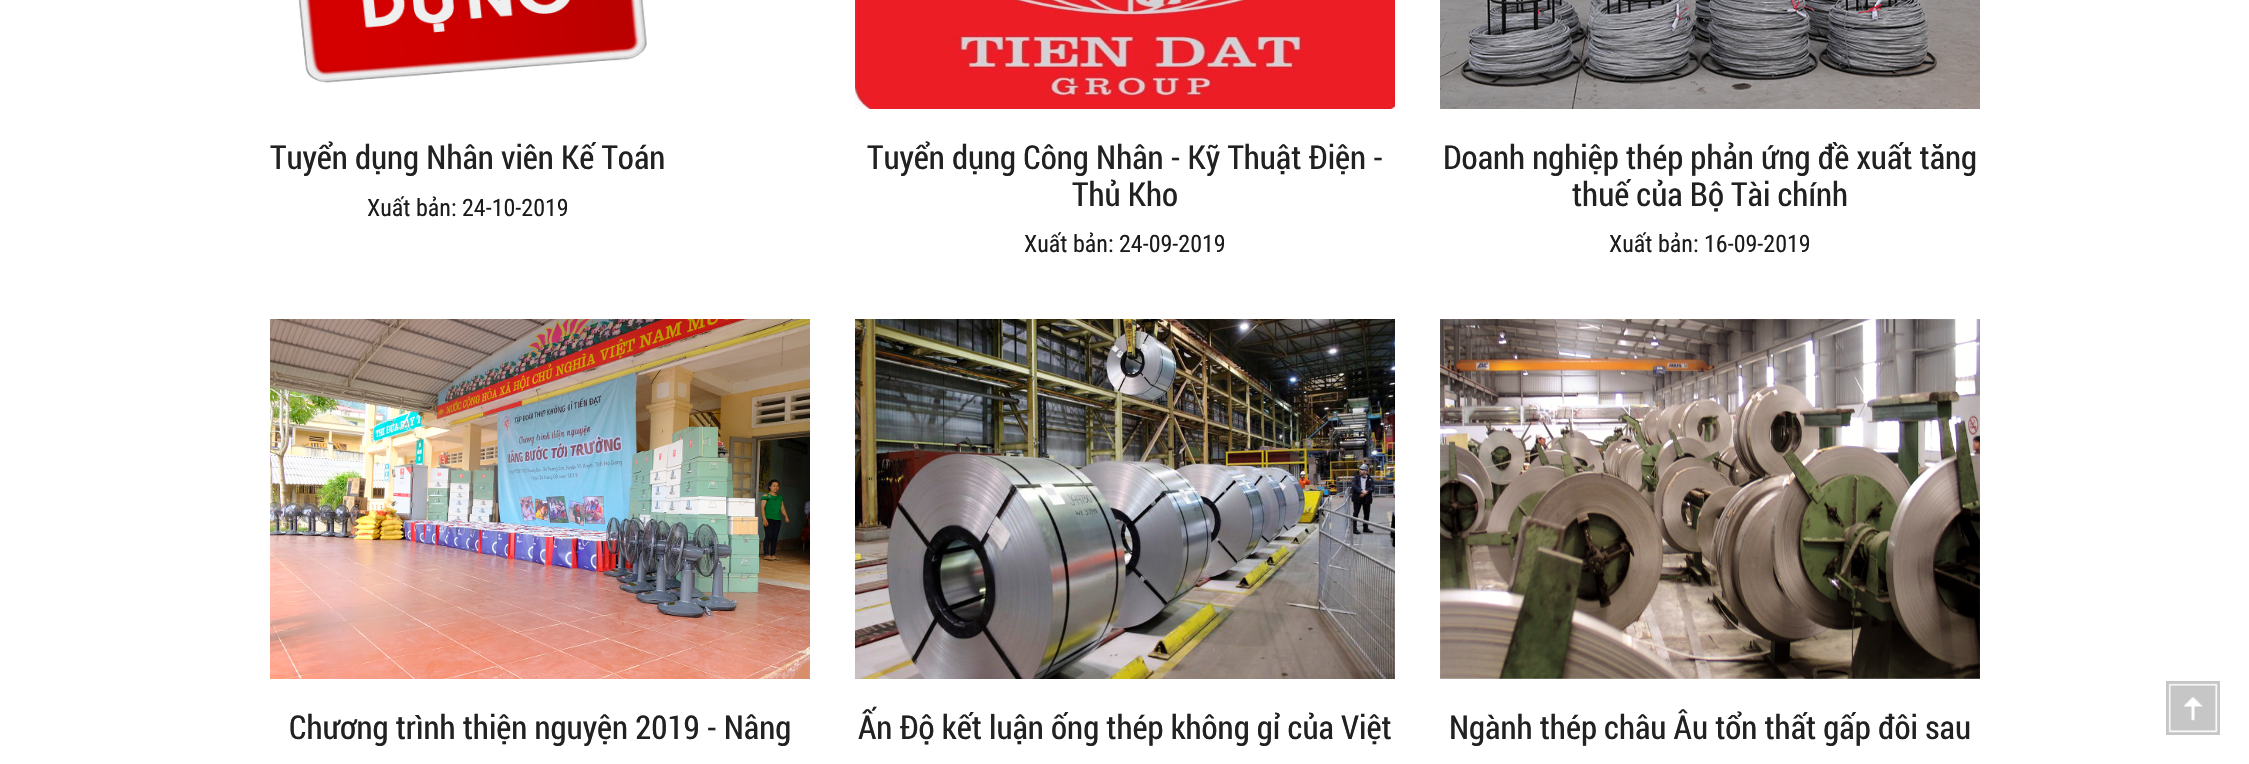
void draw(SkCanvas* canvas) {
	SkPaint fill;
	fill.setAntiAlias(true);
	auto makeFont = [&](const char* family, int weight, float size, bool italic = false) {
		SkFontStyle style(weight, SkFontStyle::kNormal_Width,
			italic ? SkFontStyle::kItalic_Slant : SkFontStyle::kUpright_Slant);
		SkFont result(fontMgr->matchFamilyStyle(family, style), size);
		result.setSubpixel(true);
		return result;
	};
	auto text = [&](const char* s, float x, float y, const SkFont& font) {
		canvas->drawString(s, x, y, font, fill);
	};
	auto picture = [&](const char* path, float l, float t, float r, float b) {
		auto image = SkImages::DeferredFromEncodedData(SkData::MakeFromFileName(path));
		canvas->drawImageRect(image, SkRect::MakeLTRB(l, t, r, b), SkSamplingOptions());
	};
	canvas->clear(0xFFFFFFFF);
	picture("image0.png", 298, 0, 647, 83);
	picture("image1.png", 855, 0, 1395, 109);
	picture("image2.png", 1440, 0, 1980, 109);
	picture("image3.png", 270, 319, 810, 679);
	picture("image4.png", 855, 319, 1395, 679);
	picture("image5.png", 1440, 319, 1980, 679);
	picture("image6.png", 2166, 681, 2220, 735);
	auto font1 = makeFont("Roboto Condensed", 400, 33);
	fill.setColor(0xFF212121);
	text("Tuyển dụng Nhân viên Kế Toán", 270, 169, font1);
	auto font2 = makeFont("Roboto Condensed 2", 400, 24);
	fill.setColor(0xFF1B1B1B);
	text("Xuất bản: 24-10-2019", 367, 216, font2);
	fill.setColor(0xFF212121);
	text("Tuyển dụng Công Nhân - Kỹ Thuật Điện -", 867, 169, font1);
	text("Thủ Kho", 1072, 206, font1);
	fill.setColor(0xFF1B1B1B);
	text("Xuất bản: 24-09-2019", 1024, 252, font2);
	fill.setColor(0xFF212121);
	text("Doanh nghiệp thép phản ứng đề xuất tăng", 1443, 169, font1);
	text("thuế của Bộ Tài chính", 1572, 206, font1);
	fill.setColor(0xFF1B1B1B);
	text("Xuất bản: 16-09-2019", 1609, 252, font2);
	fill.setColor(0xFF212121);
	text("Chương trình thiện nguyện 2019 - Nâng", 289, 739, font1);
	text("Ấn Độ kết luận ống thép không gỉ của Việt", 858, 739, font1);
	text("Ngành thép châu Âu tổn thất gấp đôi sau", 1449, 739, font1);
}
